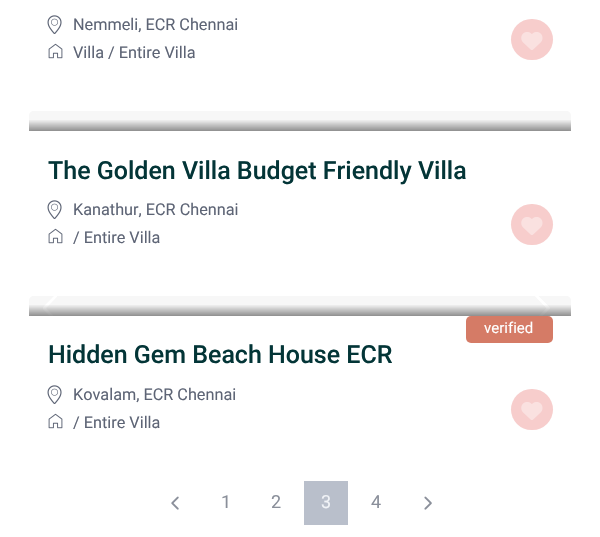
void draw(SkCanvas* canvas) {
	SkPaint fill;
	fill.setAntiAlias(true);
	auto makeFont = [&](const char* family, int weight, float size, bool italic = false) {
		SkFontStyle style(weight, SkFontStyle::kNormal_Width,
			italic ? SkFontStyle::kItalic_Slant : SkFontStyle::kUpright_Slant);
		SkFont result(fontMgr->matchFamilyStyle(family, style), size);
		result.setSubpixel(true);
		return result;
	};
	auto text = [&](const char* s, float x, float y, const SkFont& font) {
		canvas->drawString(s, x, y, font, fill);
	};
	auto box = [&](float l, float t, float r, float b) {
		canvas->drawRect(SkRect::MakeLTRB(l, t, r, b), fill);
	};
	auto roundBox = [&](float l, float t, float r, float b, float radius) {
		canvas->drawRoundRect(SkRect::MakeLTRB(l, t, r, b), radius, radius, fill);
	};
	auto picture = [&](const char* path, float l, float t, float r, float b) {
		auto image = SkImages::DeferredFromEncodedData(SkData::MakeFromFileName(path));
		canvas->drawImageRect(image, SkRect::MakeLTRB(l, t, r, b), SkSamplingOptions());
	};
	canvas->clear(0xFFFFFFFF);
	picture("image0.png", 47, 15, 62, 34);
	picture("image1.png", 48, 43, 63, 59);
	fill.setColor(0xFFF7CDCC);
	roundBox(511, 19, 553, 60, 20.5f);
	picture("image2.png", 521, 32, 543, 50);
	fill.setColor(0xFFF7F7F7);
	canvas->drawPath(SkPathBuilder().moveTo(34, 111).lineTo(566, 111).cubicTo(569, 111, 571, 113, 571, 116).lineTo(571, 127).cubicTo(571, 129, 569, 131, 567, 131).lineTo(33, 131).cubicTo(31, 131, 29, 129, 29, 127).lineTo(29, 116).cubicTo(29, 113, 31, 111, 34, 111).close().detach(), fill);
	{
		const SkColor colors[] = {0x00484848, 0x99484848};
		const float stops[] = {0.03f, 1};
		const SkPoint ends[] = {{300, 119}, {300, 131}};
		fill.setShader(SkGradientShader::MakeLinear(ends, colors, stops, 2, SkTileMode::kClamp));
		fill.setAlpha(255);
	}
	box(29, 120, 571, 131);
	picture("image0.png", 47, 200, 62, 219);
	picture("image1.png", 48, 228, 63, 244);
	fill.setShader(nullptr);
	fill.setColor(0xFFF7CDCC);
	roundBox(511, 204, 553, 245, 20.5f);
	picture("image2.png", 521, 217, 543, 235);
	fill.setColor(0xFFF7F7F7);
	canvas->drawPath(SkPathBuilder().moveTo(34, 296).lineTo(566, 296).cubicTo(569, 296, 571, 298, 571, 301).lineTo(571, 312).cubicTo(571, 314, 569, 316, 567, 316).lineTo(33, 316).cubicTo(31, 316, 29, 314, 29, 312).lineTo(29, 301).cubicTo(29, 298, 31, 296, 34, 296).close().detach(), fill);
	picture("image3.png", 43, 296, 57, 316);
	picture("image4.png", 535, 296, 550, 316);
	{
		const SkColor colors[] = {0x00484848, 0x99484848};
		const float stops[] = {0.03f, 1};
		const SkPoint ends[] = {{300, 304}, {300, 316}};
		fill.setShader(SkGradientShader::MakeLinear(ends, colors, stops, 2, SkTileMode::kClamp));
		fill.setAlpha(255);
	}
	box(29, 305, 571, 316);
	fill.setShader(nullptr);
	fill.setColor(0xFFD57B66);
	roundBox(466, 316, 553, 343, 5);
	picture("image0.png", 47, 385, 62, 404);
	picture("image1.png", 48, 413, 63, 429);
	fill.setColor(0xFFF7CDCC);
	roundBox(511, 389, 553, 430, 20.5f);
	picture("image2.png", 521, 402, 543, 420);
	picture("image5.png", 171, 496, 179, 510);
	fill.setColor(0xFFB9BFCB);
	box(304, 481, 348, 525);
	picture("image6.png", 424, 496, 432, 510);
	auto font1 = makeFont("Roboto", 400, 16.25f);
	fill.setColor(0xFF5D6475);
	text("Nemmeli, ECR Chennai", 73, 30, font1);
	text("Villa / Entire Villa", 73, 58, font1);
	auto font2 = makeFont("Roboto", 500, 25);
	fill.setColor(0xFF033537);
	text("The Golden Villa Budget Friendly Villa", 48, 179, font2);
	fill.setColor(0xFF5D6475);
	text("Kanathur, ECR Chennai", 73, 215, font1);
	text("/ Entire Villa", 73, 243, font1);
	auto font3 = makeFont("Roboto", 400, 15);
	fill.setColor(0xFFFFFFFF);
	text("verified", 484, 333, font3);
	fill.setColor(0xFF033537);
	text("Hidden Gem Beach House ECR", 48, 363, font2);
	fill.setColor(0xFF5D6475);
	text("Kovalam, ECR Chennai", 73, 400, font1);
	text("/ Entire Villa", 73, 428, font1);
	auto font4 = makeFont("Roboto", 400, 18);
	fill.setColor(0xFF8A8F9A);
	text("1", 221, 508, font4);
	text("2", 271, 508, font4);
	fill.setColor(0xFFF1F3F7);
	text("3", 321, 508, font4);
	fill.setColor(0xFF8A8F9A);
	text("4", 371, 508, font4);
}
